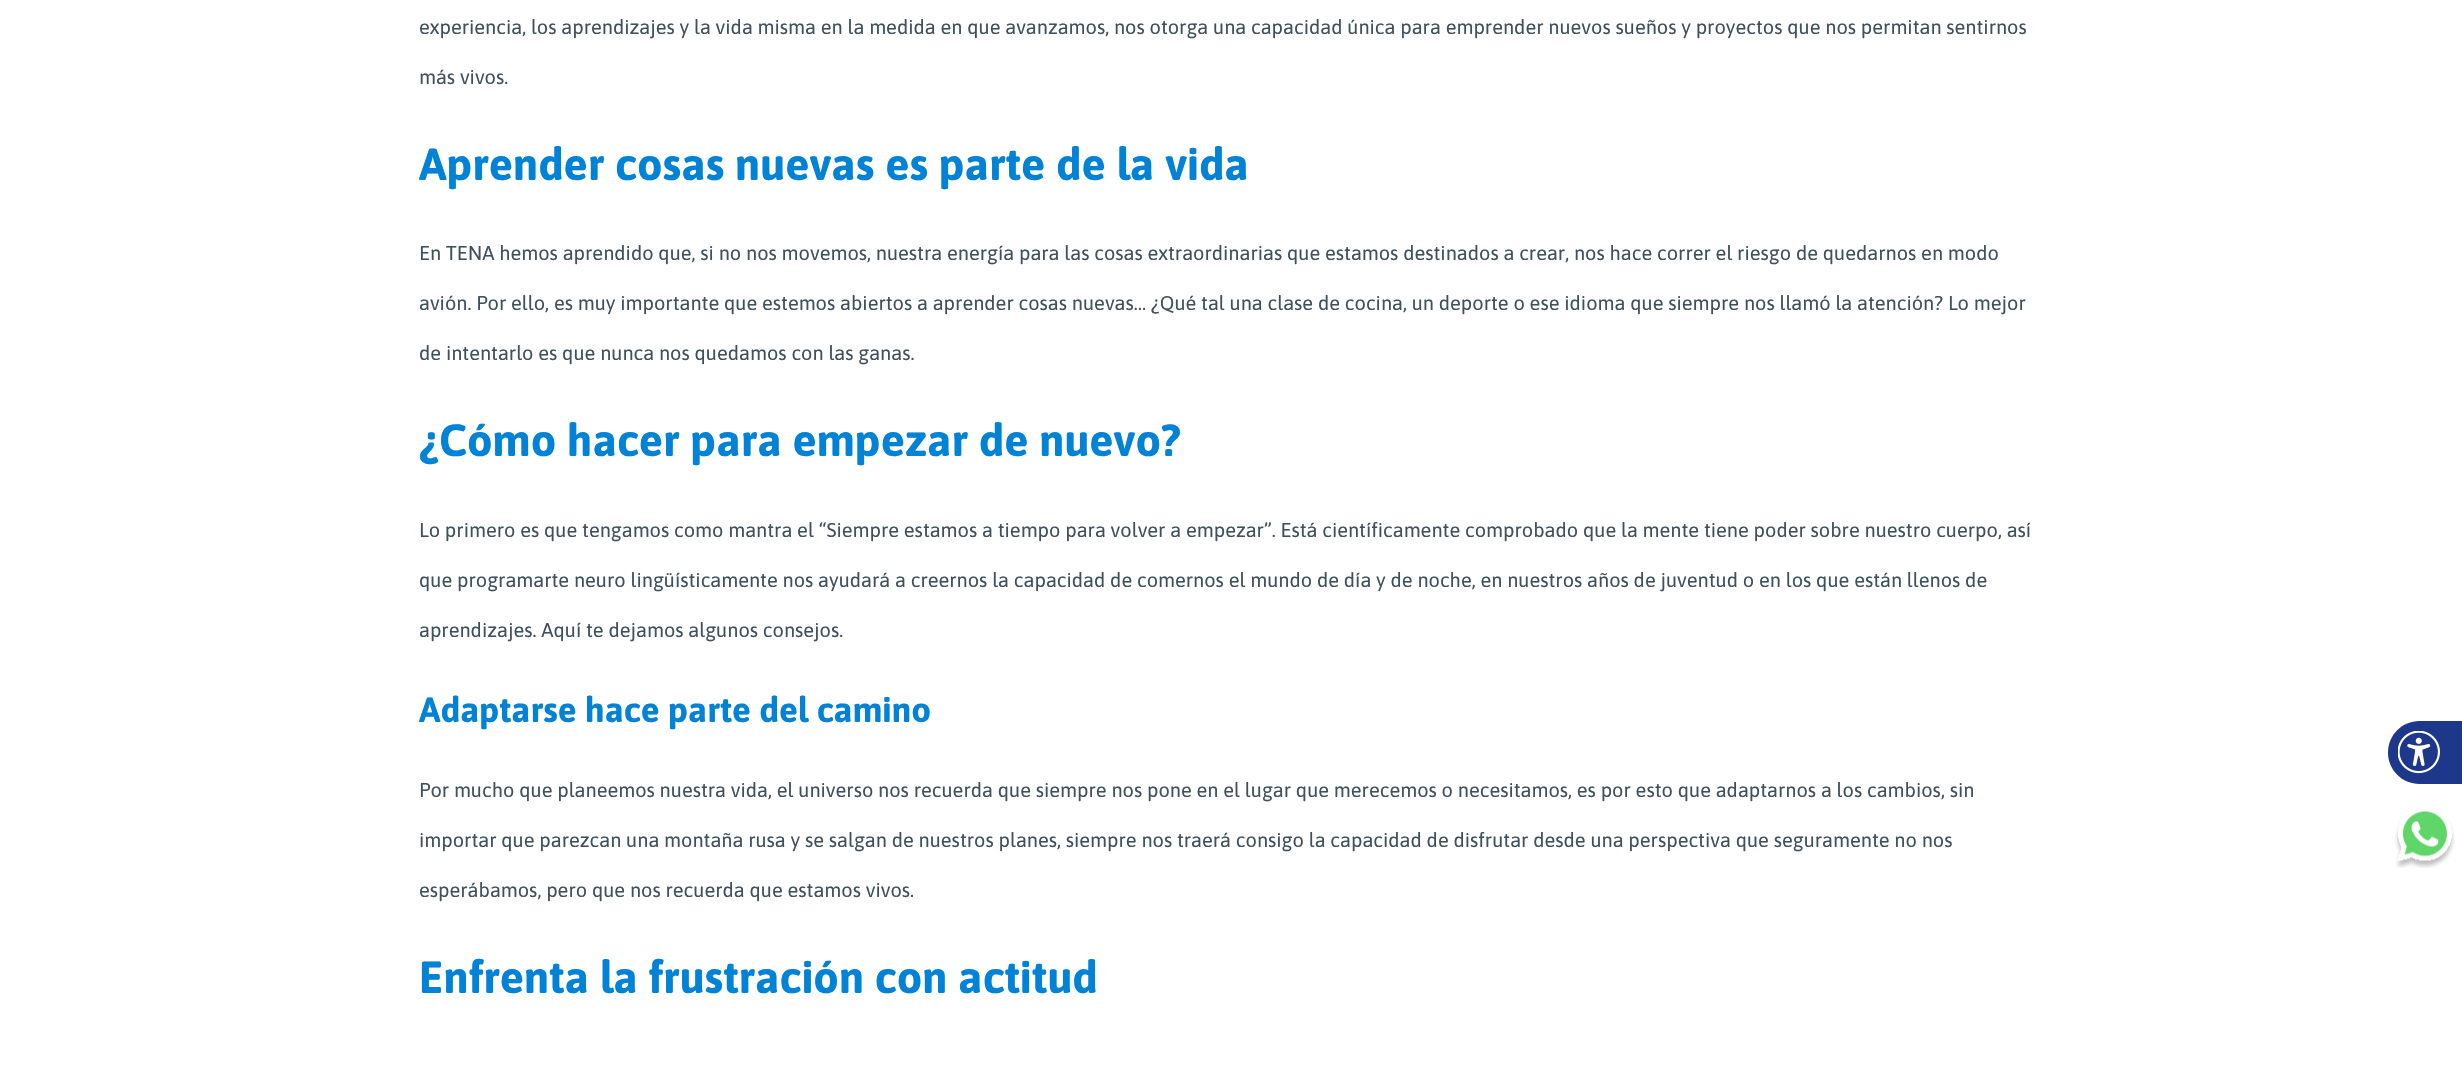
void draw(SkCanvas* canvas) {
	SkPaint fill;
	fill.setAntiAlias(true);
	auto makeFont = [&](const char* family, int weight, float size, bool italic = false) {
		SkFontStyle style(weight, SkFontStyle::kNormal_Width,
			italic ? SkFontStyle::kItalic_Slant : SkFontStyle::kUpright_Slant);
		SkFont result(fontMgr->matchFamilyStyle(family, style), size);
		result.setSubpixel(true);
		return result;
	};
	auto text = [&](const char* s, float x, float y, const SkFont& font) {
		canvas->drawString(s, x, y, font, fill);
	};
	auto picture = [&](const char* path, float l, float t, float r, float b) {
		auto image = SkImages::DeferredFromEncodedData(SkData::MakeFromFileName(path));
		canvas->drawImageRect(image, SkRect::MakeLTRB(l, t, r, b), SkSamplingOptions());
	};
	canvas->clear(0xFFFFFFFF);
	fill.setColor(0xFF1D388B);
	canvas->drawPath(SkPathBuilder().moveTo(2419.5f, 721).lineTo(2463, 721).lineTo(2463, 784).lineTo(2419.5f, 784).cubicTo(2402, 784, 2388, 770, 2388, 752.5f).cubicTo(2388, 735, 2402, 721, 2419.5f, 721).close().detach(), fill);
	picture("image0.png", 2398, 731, 2440, 774);
	picture("image1.png", 2395, 811, 2455, 868);
	auto font1 = makeFont("Asap", 400, 20);
	fill.setColor(0xFF3F515D);
	text("experiencia, los aprendizajes y la vida misma en la medida en que avanzamos, nos otorga una capacidad única para emprender nuevos sueños y proyectos que nos permitan sentirnos", 419, 34, font1);
	text("más vivos.", 419, 84, font1);
	auto font2 = makeFont("Asap", 700, 45);
	fill.setColor(0xFF0082D6);
	text("Aprender cosas nuevas es parte de la vida", 419, 180, font2);
	fill.setColor(0xFF3F515D);
	text("En TENA hemos aprendido que, si no nos movemos, nuestra energía para las cosas extraordinarias que estamos destinados a crear, nos hace correr el riesgo de quedarnos en modo", 419, 260, font1);
	text("avión. Por ello, es muy importante que estemos abiertos a aprender cosas nuevas… ¿Qué tal una clase de cocina, un deporte o ese idioma que siempre nos llamó la atención? Lo mejor", 419, 310, font1);
	text("de intentarlo es que nunca nos quedamos con las ganas.", 419, 360, font1);
	fill.setColor(0xFF0082D6);
	text("¿Cómo hacer para empezar de nuevo?", 419, 456, font2);
	fill.setColor(0xFF3F515D);
	text("Lo primero es que tengamos como mantra el “Siempre estamos a tiempo para volver a empezar”. Está científicamente comprobado que la mente tiene poder sobre nuestro cuerpo, así", 419, 537, font1);
	text("que programarte neuro lingüísticamente nos ayudará a creernos la capacidad de comernos el mundo de día y de noche, en nuestros años de juventud o en los que están llenos de", 419, 587, font1);
	text("aprendizajes. Aquí te dejamos algunos consejos.", 419, 637, font1);
	auto font3 = makeFont("Asap", 700, 35);
	fill.setColor(0xFF0082D6);
	text("Adaptarse hace parte del camino", 419, 722, font3);
	fill.setColor(0xFF3F515D);
	text("Por mucho que planeemos nuestra vida, el universo nos recuerda que siempre nos pone en el lugar que merecemos o necesitamos, es por esto que adaptarnos a los cambios, sin", 419, 797, font1);
	text("importar que parezcan una montaña rusa y se salgan de nuestros planes, siempre nos traerá consigo la capacidad de disfrutar desde una perspectiva que seguramente no nos", 419, 847, font1);
	text("esperábamos, pero que nos recuerda que estamos vivos.", 419, 897, font1);
	fill.setColor(0xFF0082D6);
	text("Enfrenta la frustración con actitud", 419, 993, font2);
}
